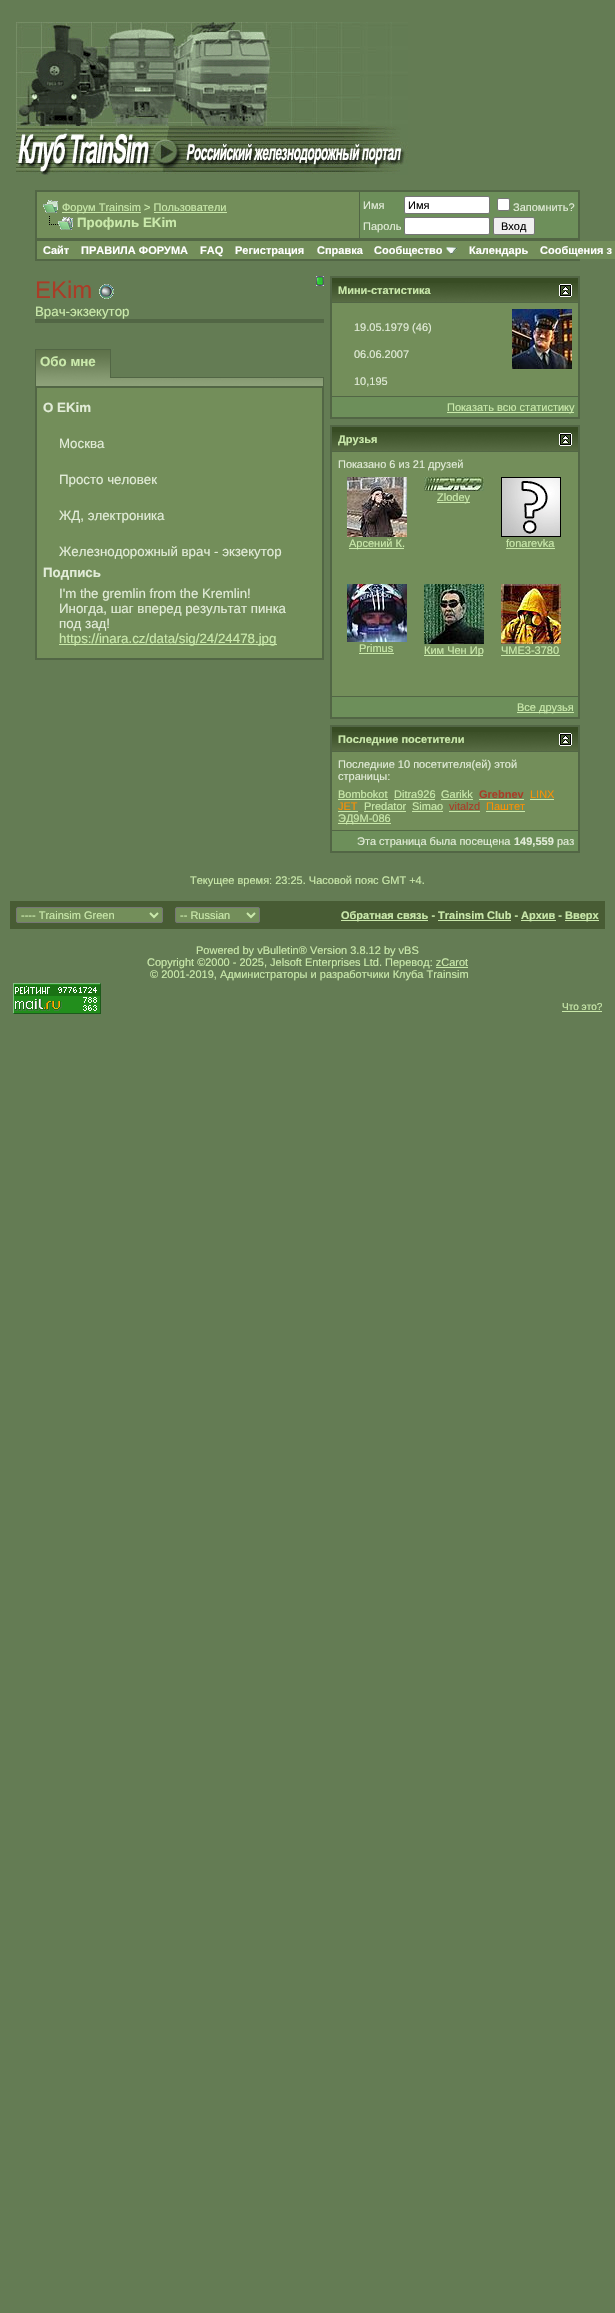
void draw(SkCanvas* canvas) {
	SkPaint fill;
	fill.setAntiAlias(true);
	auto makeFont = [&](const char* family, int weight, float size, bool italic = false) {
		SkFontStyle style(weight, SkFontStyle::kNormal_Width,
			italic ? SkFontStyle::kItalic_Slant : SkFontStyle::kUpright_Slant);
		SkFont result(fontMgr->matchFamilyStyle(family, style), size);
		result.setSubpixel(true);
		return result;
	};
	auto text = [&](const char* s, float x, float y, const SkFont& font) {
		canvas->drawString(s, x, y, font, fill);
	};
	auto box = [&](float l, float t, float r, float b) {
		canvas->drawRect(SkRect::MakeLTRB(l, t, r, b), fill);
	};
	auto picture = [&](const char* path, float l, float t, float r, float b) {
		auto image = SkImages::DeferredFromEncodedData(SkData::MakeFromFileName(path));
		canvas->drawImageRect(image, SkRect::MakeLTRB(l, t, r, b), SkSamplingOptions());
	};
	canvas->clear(0xFF647C54);
	picture("image0.png", 16, 22, 408, 175);
	fill.setColor(0xFF526645);
	box(35, 190, 580, 240);
	fill.setColor(0xFF738E5A);
	box(37, 192, 359, 238);
	picture("image1.png", 43, 200, 58, 213);
	fill.setColor(0xFFCAE9AB);
	box(62, 212, 141, 213);
	box(154, 212, 227, 213);
	picture("image2.png", 49, 216, 73, 230);
	fill.setColor(0xFF6D8F5A);
	box(360, 192, 578, 238);
	fill.setColor(0xFFFFFFFF);
	canvas->drawRoundRect(SkRect::MakeLTRB(404.5f, 196.5f, 489.5f, 213.5f), 1.5f, 1.5f, fill);
	fill.setStyle(SkPaint::kStroke_Style);
	fill.setStrokeWidth(1);
	fill.setColor(0xFF767676);
	canvas->drawRoundRect(SkRect::MakeLTRB(404.5f, 196.5f, 489.5f, 213.5f), 1.5f, 1.5f, fill);
	fill.setStyle(SkPaint::kFill_Style);
	fill.setColor(0xFFFFFFFF);
	canvas->drawRoundRect(SkRect::MakeLTRB(497.5f, 198.5f, 509.5f, 210.5f), 1.5f, 1.5f, fill);
	fill.setStyle(SkPaint::kStroke_Style);
	fill.setColor(0xFF767676);
	canvas->drawRoundRect(SkRect::MakeLTRB(497.5f, 198.5f, 509.5f, 210.5f), 1.5f, 1.5f, fill);
	fill.setStyle(SkPaint::kFill_Style);
	fill.setColor(0xFFFFFFFF);
	canvas->drawRoundRect(SkRect::MakeLTRB(404.5f, 217.5f, 489.5f, 234.5f), 1.5f, 1.5f, fill);
	fill.setStyle(SkPaint::kStroke_Style);
	fill.setColor(0xFF767676);
	canvas->drawRoundRect(SkRect::MakeLTRB(404.5f, 217.5f, 489.5f, 234.5f), 1.5f, 1.5f, fill);
	fill.setStyle(SkPaint::kFill_Style);
	fill.setColor(0xFFEFEFEF);
	canvas->drawRoundRect(SkRect::MakeLTRB(493.5f, 217.5f, 534.5f, 234.5f), 1.5f, 1.5f, fill);
	fill.setStyle(SkPaint::kStroke_Style);
	fill.setColor(0xFF767676);
	canvas->drawRoundRect(SkRect::MakeLTRB(493.5f, 217.5f, 534.5f, 234.5f), 1.5f, 1.5f, fill);
	fill.setStyle(SkPaint::kFill_Style);
	fill.setColor(0xFF526645);
	box(36, 240, 579, 260);
	box(579, 240, 580, 261);
	box(35, 260, 580, 261);
	box(35, 240, 36, 261);
	fill.setColor(0xFF738E5A);
	box(37, 241, 615, 259);
	picture("image3.png", 446, 247, 457, 254);
	picture("image4.png", 99, 284, 114, 299);
	picture("image5.png", 316, 276, 324, 286);
	fill.setColor(0xFF526645);
	box(35, 319, 324, 323);
	picture("image6.png", 36, 378, 323, 386);
	box(111, 377, 324, 378);
	box(323, 377, 324, 386);
	box(35, 349, 36, 386);
	box(36, 349, 110, 350);
	picture("image7.png", 36, 350, 110, 378);
	box(110, 349, 111, 378);
	box(35, 386, 324, 660);
	fill.setColor(0xFF738E5A);
	box(37, 388, 322, 658);
	fill.setColor(0xFFCAE9AB);
	box(59, 644, 277, 645);
	fill.setColor(0xFF526645);
	box(330, 276, 580, 419);
	fill.setColor(0xFF384C24);
	box(332, 278, 578, 283);
	picture("image8.png", 332, 283, 578, 302);
	picture("image9.png", 559, 284, 572, 297);
	fill.setColor(0xFF738E5A);
	box(332, 303, 578, 396);
	picture("image10.png", 512, 309, 572, 369);
	fill.setColor(0xFF6D8F5A);
	box(332, 397, 578, 417);
	fill.setColor(0xFFCAE9AB);
	box(447, 412, 574, 413);
	fill.setColor(0xFF526645);
	box(330, 425, 580, 719);
	fill.setColor(0xFF384C24);
	box(332, 427, 578, 432);
	picture("image8.png", 332, 432, 578, 451);
	picture("image9.png", 559, 433, 572, 446);
	fill.setColor(0xFF738E5A);
	box(332, 452, 578, 696);
	picture("image11.png", 424, 477, 484, 491);
	fill.setColor(0xFFCAE9AB);
	box(437, 502, 470, 503);
	picture("image12.png", 347, 477, 407, 537);
	box(349, 548, 404, 549);
	picture("image13.png", 501, 477, 561, 537);
	box(506, 548, 555, 549);
	picture("image14.png", 347, 584, 407, 642);
	box(359, 653, 394, 654);
	picture("image15.png", 424, 584, 484, 644);
	box(424, 655, 483, 656);
	picture("image16.png", 501, 584, 561, 644);
	box(501, 655, 560, 656);
	fill.setColor(0xFF6D8F5A);
	box(332, 697, 578, 717);
	fill.setColor(0xFFCAE9AB);
	box(517, 712, 574, 713);
	fill.setColor(0xFF526645);
	box(330, 725, 580, 853);
	fill.setColor(0xFF384C24);
	box(332, 727, 578, 732);
	picture("image8.png", 332, 732, 578, 751);
	picture("image9.png", 559, 733, 572, 746);
	fill.setColor(0xFF738E5A);
	box(332, 752, 578, 830);
	fill.setColor(0xFFCAE9AB);
	box(338, 799, 388, 800);
	box(394, 799, 435, 800);
	box(441, 799, 473, 800);
	box(479, 799, 524, 800);
	box(530, 799, 554, 800);
	box(338, 811, 358, 812);
	box(364, 811, 406, 812);
	box(412, 811, 443, 812);
	box(449, 811, 480, 812);
	box(486, 811, 525, 812);
	box(338, 823, 391, 824);
	fill.setColor(0xFF6D8F5A);
	box(332, 831, 578, 851);
	fill.setColor(0xFF485C34);
	box(10, 901, 605, 929);
	fill.setColor(0xFF738E5A);
	canvas->drawRoundRect(SkRect::MakeLTRB(16.5f, 907.5f, 162.5f, 922.5f), 1.5f, 1.5f, fill);
	fill.setStyle(SkPaint::kStroke_Style);
	fill.setColor(0xFF767676);
	canvas->drawRoundRect(SkRect::MakeLTRB(16.5f, 907.5f, 162.5f, 922.5f), 1.5f, 1.5f, fill);
	fill.setStrokeWidth(2);
	fill.setColor(0xFFCAE9AB);
	canvas->drawPath(SkPathBuilder().moveTo(150, 913).lineTo(154, 917).lineTo(158, 913).detach(), fill);
	fill.setStyle(SkPaint::kFill_Style);
	fill.setColor(0xFF738E5A);
	canvas->drawRoundRect(SkRect::MakeLTRB(175.5f, 907.5f, 259.5f, 922.5f), 1.5f, 1.5f, fill);
	fill.setStyle(SkPaint::kStroke_Style);
	fill.setStrokeWidth(1);
	fill.setColor(0xFF767676);
	canvas->drawRoundRect(SkRect::MakeLTRB(175.5f, 907.5f, 259.5f, 922.5f), 1.5f, 1.5f, fill);
	fill.setStrokeWidth(2);
	fill.setColor(0xFFCAE9AB);
	canvas->drawPath(SkPathBuilder().moveTo(247, 913).lineTo(251, 917).lineTo(255, 913).detach(), fill);
	fill.setStyle(SkPaint::kFill_Style);
	box(341, 920, 428, 921);
	box(438, 920, 511, 921);
	box(521, 920, 556, 921);
	box(565, 920, 599, 921);
	box(436, 967, 468, 968);
	picture("image17.png", 13, 983, 101, 1014);
	box(562, 1011, 602, 1012);
	auto font1 = makeFont("Liberation Sans", 400, 11);
	text("Форум Trainsim", 62, 211, font1);
	text("> Пользователи", 144, 211, font1);
	auto font2 = makeFont("Liberation Sans", 700, 13.3f);
	text("Профиль EKim", 77, 227, font2);
	fill.setColor(0xFFE2ECD8);
	text("Имя", 363, 209, font1);
	fill.setColor(0xFF000000);
	text("Имя", 408, 209, font1);
	fill.setColor(0xFFE2ECD8);
	text("Запомнить?", 513, 211, font1);
	text("Пароль", 363, 230, font1);
	fill.setColor(0xFF000000);
	text("Вход", 501, 230, font1);
	auto font3 = makeFont("Liberation Sans", 700, 11);
	fill.setColor(0xFFFFFFFF);
	text("Сайт", 43, 254, font3);
	text("ПРАВИЛА ФОРУМА", 81, 254, font3);
	text("FAQ", 200, 254, font3);
	text("Регистрация", 235, 254, font3);
	text("Справка", 317, 254, font3);
	text("Сообщество", 374, 254, font3);
	text("Календарь", 469, 254, font3);
	text("Сообщения з", 540, 254, font3);
	auto font4 = makeFont("Liberation Sans", 400, 24);
	fill.setColor(0xFFA93D27);
	text("EKim", 35, 298, font4);
	auto font5 = makeFont("Liberation Sans", 400, 13.3f);
	fill.setColor(0xFFCAE9AB);
	text("Врач-экзекутор", 35, 316, font5);
	text("Обо мне", 40, 366, font2);
	fill.setColor(0xFFE2ECD8);
	text("О EKim", 43, 412, font2);
	text("Москва", 59, 448, font5);
	text("Просто человек", 59, 484, font5);
	text("ЖД, электроника", 59, 520, font5);
	text("Железнодорожный врач - экзекутор", 59, 556, font5);
	text("Подпись", 43, 577, font2);
	text("I'm the gremlin from the Kremlin!", 59, 598, font5);
	text("Иногда, шаг вперед результат пинка", 59, 613, font5);
	text("под зад!", 59, 628, font5);
	fill.setColor(0xFFCAE9AB);
	text("https://inara.cz/data/sig/24/24478.jpg", 59, 643, font5);
	text("Мини-статистика", 338, 294, font3);
	fill.setColor(0xFFE2ECD8);
	text("19.05.1979 (46)", 354, 331, font1);
	text("06.06.2007", 354, 358, font1);
	text("10,195", 354, 385, font1);
	fill.setColor(0xFFCAE9AB);
	text("Показать всю статистику", 447, 411, font1);
	text("Друзья", 338, 443, font3);
	fill.setColor(0xFFE2ECD8);
	text("Показано 6 из 21 друзей", 338, 468, font1);
	fill.setColor(0xFFCAE9AB);
	text("Zlodey", 437, 501, font1);
	text("Арсений К.", 349, 547, font1);
	text("fonarevka", 506, 547, font1);
	text("Primus", 359, 652, font1);
	text("Ким Чен Ир", 424, 654, font1);
	text("ЧМЕ3-3780", 501, 654, font1);
	text("Все друзья", 517, 711, font1);
	text("Последние посетители", 338, 743, font3);
	fill.setColor(0xFFE2ECD8);
	text("Последние 10 посетителя(ей) этой", 338, 768, font1);
	text("страницы:", 338, 780, font1);
	fill.setColor(0xFFCAE9AB);
	text("Bombokot", 338, 798, font1);
	text("Ditra926", 394, 798, font1);
	text("Garikk", 441, 798, font1);
	fill.setColor(0xFFA93D27);
	text("Grebnev", 479, 798, font3);
	fill.setColor(0xFFFE9001);
	text("LINX", 530, 798, font1);
	text("JET", 338, 810, font1);
	fill.setColor(0xFFCAE9AB);
	text("Predator", 364, 810, font1);
	text("Simao", 412, 810, font1);
	fill.setColor(0xFFA93D27);
	text("vitalzd", 449, 810, font1);
	fill.setColor(0xFFFE9001);
	text("Паштет", 486, 810, font1);
	fill.setColor(0xFFCAE9AB);
	text("ЭД9М-086", 338, 822, font1);
	fill.setColor(0xFFE2ECD8);
	text("Эта страница была посещена", 357, 845, font1);
	text("149,559", 514, 845, font3);
	text("раз", 557, 845, font1);
	fill.setColor(0xFFCAE9AB);
	text("Текущее время: 23:25. Часовой пояс GMT +4.", 190, 884, font1);
	text("---- Trainsim Green", 21, 919, font1);
	text("-- Russian", 180, 919, font1);
	text("Обратная связь - Trainsim Club -", 341, 919, font3);
	text("Архив -", 521, 919, font3);
	text("Вверх", 565, 919, font3);
	text("Powered by vBulletin® Version 3.8.12 by vBS", 196, 954, font1);
	text("Copyright ©2000 - 2025, Jelsoft Enterprises Ltd. Перевод: zCarot", 147, 966, font1);
	text("© 2001-2019, Администраторы и разработчики Клуба Trainsim", 150, 978, font1);
	auto font6 = makeFont("Liberation Sans", 400, 10);
	text("Что это?", 562, 1010, font6);
}
